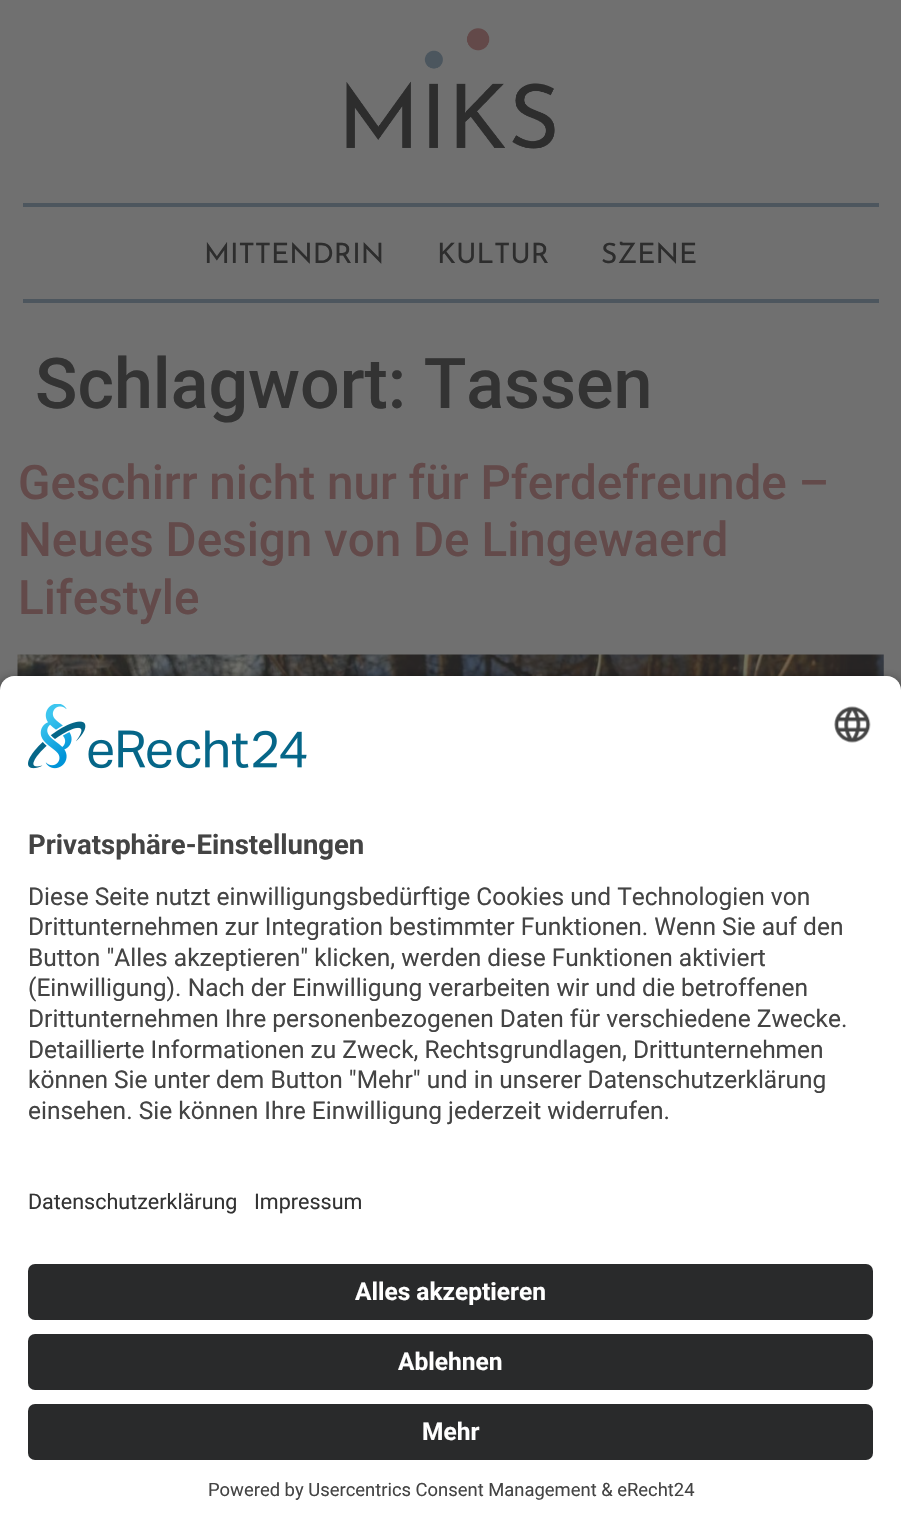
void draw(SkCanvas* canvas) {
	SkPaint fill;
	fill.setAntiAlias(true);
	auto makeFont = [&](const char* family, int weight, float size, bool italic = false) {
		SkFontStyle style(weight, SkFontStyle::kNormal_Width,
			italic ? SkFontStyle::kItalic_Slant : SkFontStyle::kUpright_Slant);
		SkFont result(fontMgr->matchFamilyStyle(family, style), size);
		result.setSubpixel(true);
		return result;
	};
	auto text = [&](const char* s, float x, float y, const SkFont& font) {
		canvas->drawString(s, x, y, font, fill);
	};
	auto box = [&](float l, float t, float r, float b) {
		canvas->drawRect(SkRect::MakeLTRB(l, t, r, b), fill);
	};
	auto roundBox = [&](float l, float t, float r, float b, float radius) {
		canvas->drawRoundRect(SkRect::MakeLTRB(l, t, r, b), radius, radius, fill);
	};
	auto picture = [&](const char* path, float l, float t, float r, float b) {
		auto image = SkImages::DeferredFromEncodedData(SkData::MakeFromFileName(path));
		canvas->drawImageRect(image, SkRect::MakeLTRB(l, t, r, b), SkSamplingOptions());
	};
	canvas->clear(0xFF707070);
	picture("image0.png", 346, 28, 555, 149);
	fill.setColor(0xFF4D565E);
	box(23, 203, 879, 207);
	box(23, 299, 879, 303);
	picture("image1.png", 17, 654, 884, 676);
	fill.setColor(0xCC000000);
	fill.setMaskFilter(SkMaskFilter::MakeBlur(kNormal_SkBlurStyle, 6));
	canvas->drawRoundRect(SkRect::MakeLTRB(0, 681, 901, 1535), 14, 14, fill);
	fill.setMaskFilter(nullptr);
	fill.setColor(0xFFFFFFFF);
	canvas->drawPath(SkPathBuilder().moveTo(14, 676).lineTo(887, 676).cubicTo(894.5f, 676, 901, 682.5f, 901, 690).lineTo(901, 1162).lineTo(0, 1162).lineTo(0, 690).cubicTo(0, 682.5f, 6.5f, 676, 14, 676).close().detach(), fill);
	picture("image2.png", 28, 704, 307, 769);
	picture("image3.png", 834, 706, 871, 743);
	box(0, 1162, 901, 1528);
	fill.setColor(0xFF292A2B);
	roundBox(28, 1264, 873, 1320, 7);
	roundBox(28, 1334, 873, 1390, 7);
	roundBox(28, 1404, 873, 1460, 7);
	auto font1 = makeFont("Josefin Sans", 400, 28);
	fill.setColor(0xFF2D2D2D);
	text("MITTENDRIN", 204, 263, font1);
	text("KULTUR", 437, 263, font1);
	text("SZENE", 601, 263, font1);
	auto font2 = makeFont("Roboto", 500, 70);
	fill.setColor(0xFF333333);
	text("Schlagwort: Tassen", 35, 408, font2);
	auto font3 = makeFont("Roboto", 500, 47.6f);
	fill.setColor(0xFF634A4A);
	text("Geschirr nicht nur für Pferdefreunde –", 18, 499, font3);
	text("Neues Design von De Lingewaerd", 18, 556, font3);
	text("Lifestyle", 18, 614, font3);
	auto font4 = makeFont("Roboto", 700, 27.5f);
	fill.setColor(0xFF444444);
	text("Privatsphäre-Einstellungen", 28, 854, font4);
	auto font5 = makeFont("Roboto", 400, 24.5f);
	text("Diese Seite nutzt einwilligungsbedürftige Cookies und Technologien von", 28, 905, font5);
	text("Drittunternehmen zur Integration bestimmter Funktionen. Wenn Sie auf den", 28, 935, font5);
	text("Button \"Alles akzeptieren\" klicken, werden diese Funktionen aktiviert", 28, 966, font5);
	text("(Einwilligung). Nach der Einwilligung verarbeiten wir und die betroffenen", 28, 996, font5);
	text("Drittunternehmen Ihre personenbezogenen Daten für verschiedene Zwecke.", 28, 1027, font5);
	text("Detaillierte Informationen zu Zweck, Rechtsgrundlagen, Drittunternehmen", 28, 1058, font5);
	text("können Sie unter dem Button \"Mehr\" und in unserer Datenschutzerklärung", 28, 1088, font5);
	text("einsehen. Sie können Ihre Einwilligung jederzeit widerrufen.", 28, 1119, font5);
	auto font6 = makeFont("Roboto", 400, 21.5f);
	fill.setColor(0xFF333333);
	text("Datenschutzerklärung", 28, 1209, font6);
	text("Impressum", 254, 1209, font6);
	auto font7 = makeFont("Roboto", 700, 24.5f);
	fill.setColor(0xFFFFFFFF);
	text("Alles akzeptieren", 355, 1300, font7);
	text("Ablehnen", 398, 1370, font7);
	text("Mehr", 422, 1440, font7);
	auto font8 = makeFont("Roboto", 400, 18.4f);
	fill.setColor(0xFF444444);
	text("Powered by Usercentrics Consent Management & eRecht24", 208, 1496, font8);
}
